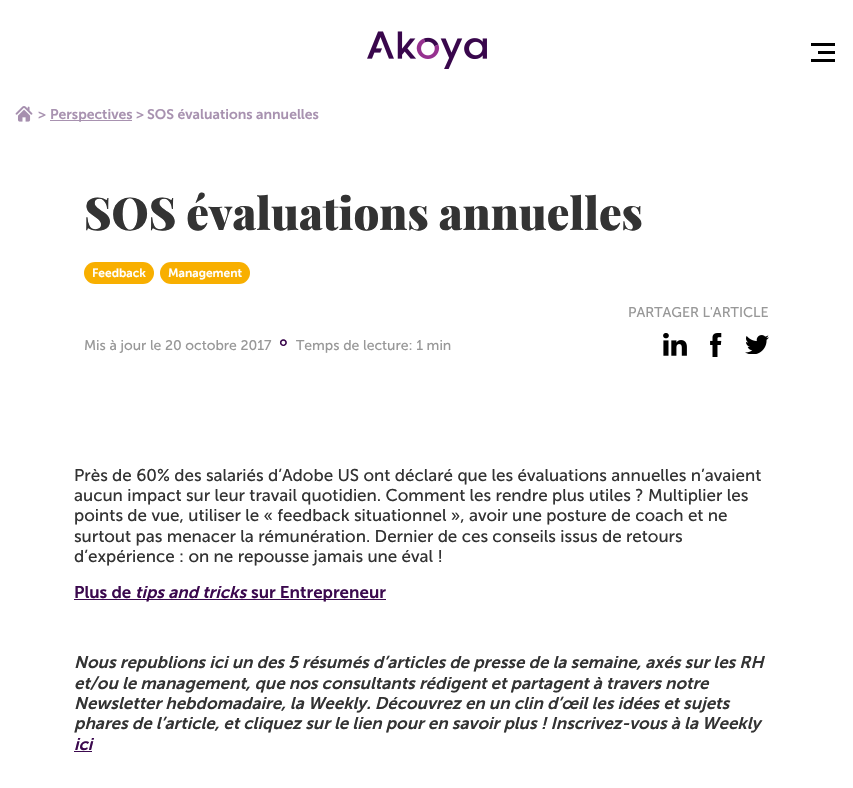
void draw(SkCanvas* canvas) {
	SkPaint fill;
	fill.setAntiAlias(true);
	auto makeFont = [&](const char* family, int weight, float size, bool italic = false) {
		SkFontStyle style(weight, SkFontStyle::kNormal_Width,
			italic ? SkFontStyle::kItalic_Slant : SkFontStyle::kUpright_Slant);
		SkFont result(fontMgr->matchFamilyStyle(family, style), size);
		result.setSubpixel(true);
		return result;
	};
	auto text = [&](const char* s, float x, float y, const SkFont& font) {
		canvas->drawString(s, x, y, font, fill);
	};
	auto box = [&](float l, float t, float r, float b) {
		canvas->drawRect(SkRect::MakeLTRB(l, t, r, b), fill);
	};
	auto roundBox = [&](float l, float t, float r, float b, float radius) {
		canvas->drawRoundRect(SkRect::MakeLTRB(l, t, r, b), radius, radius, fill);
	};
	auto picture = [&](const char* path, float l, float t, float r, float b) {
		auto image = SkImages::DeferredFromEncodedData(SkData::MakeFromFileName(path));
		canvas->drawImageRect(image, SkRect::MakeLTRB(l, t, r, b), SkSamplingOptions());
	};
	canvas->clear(0xFFFFFFFF);
	picture("image0.png", 367, 31, 487, 69);
	fill.setColor(0xFF000000);
	box(811, 43, 835, 46);
	box(818, 51, 835, 54);
	box(811, 59, 835, 62);
	picture("image1.png", 15, 106, 33, 122);
	fill.setColor(0xFFA892B0);
	box(50, 120, 132, 121);
	fill.setColor(0xFFF8AF00);
	roundBox(84, 262, 154, 284, 11);
	roundBox(160, 262, 250, 284, 11);
	picture("image2.png", 663, 333, 687, 356);
	picture("image3.png", 710, 333, 722, 357);
	picture("image4.png", 745, 335, 769, 354);
	fill.setColor(0xFF3B094E);
	box(74, 599, 247, 600);
	box(247, 599, 386, 600);
	box(74, 751, 92, 752);
	auto font1 = makeFont("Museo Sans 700", 600, 14);
	fill.setColor(0xFFA892B0);
	text(">", 38, 119, font1);
	text("Perspectives > SOS évaluations annuelles", 50, 119, font1);
	auto font2 = makeFont("Playfair Display", 900, 45);
	fill.setColor(0xFF333333);
	text("SOS évaluations annuelles", 84, 230, font2);
	auto font3 = makeFont("Museo Sans 700", 600, 12);
	fill.setColor(0xFFFFFFFF);
	text("Feedback", 92, 277, font3);
	text("Management", 168, 277, font3);
	auto font4 = makeFont("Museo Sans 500", 400, 14);
	fill.setColor(0xFF989898);
	text("PARTAGER L'ARTICLE", 628, 317, font4);
	text("Mis à jour le 20 octobre 2017", 84, 350, font4);
	auto font5 = makeFont("DejaVu Sans", 400, 20);
	fill.setColor(0xFF3B094E);
	text("⚬", 275, 350, font5);
	fill.setColor(0xFF989898);
	text("Temps de lecture: 1 min", 296, 350, font4);
	auto font6 = makeFont("Museo Sans 500", 400, 17);
	fill.setColor(0xFF333333);
	text("Près de 60% des salariés d’Adobe US ont déclaré que les évaluations annuelles n’avaient", 74, 481, font6);
	text("aucun impact sur leur travail quotidien. Comment les rendre plus utiles ? Multiplier les", 74, 501, font6);
	text("points de vue, utiliser le « feedback situationnel », avoir une posture de coach et ne", 74, 521, font6);
	text("surtout pas menacer la rémunération. Dernier de ces conseils issus de retours", 74, 542, font6);
	text("d’expérience : on ne repousse jamais une éval !", 74, 562, font6);
	auto font7 = makeFont("Museo Sans 700", 600, 17);
	fill.setColor(0xFF3B094E);
	text("Plus de", 74, 598, font7);
	auto font8 = makeFont("Museo Sans 700", 600, 17, true);
	text("tips and tricks", 135, 598, font8);
	text("sur Entrepreneur", 251, 598, font7);
	fill.setColor(0xFF333333);
	text("Nous republions ici un des 5 résumés d’articles de presse de la semaine, axés sur les RH", 74, 668, font8);
	text("et/ou le management, que nos consultants rédigent et partagent à travers notre", 74, 689, font8);
	text("Newsletter hebdomadaire, la Weekly. Découvrez en un clin d’œil les idées et sujets", 74, 709, font8);
	text("phares de l’article, et cliquez sur le lien pour en savoir plus ! Inscrivez-vous à la Weekly", 74, 729, font8);
	fill.setColor(0xFF3B094E);
	text("ici", 74, 750, font8);
}
